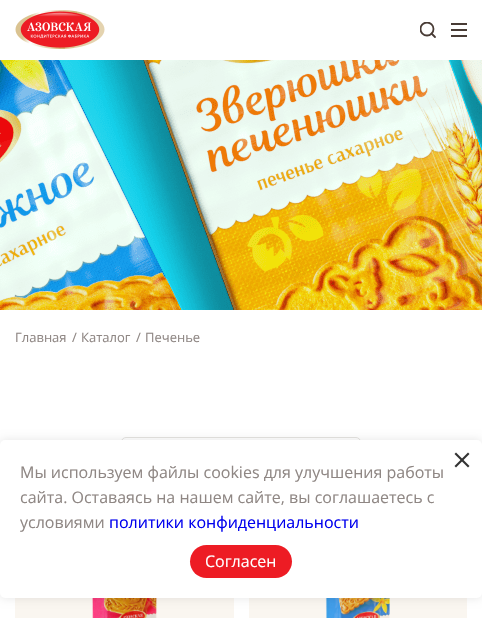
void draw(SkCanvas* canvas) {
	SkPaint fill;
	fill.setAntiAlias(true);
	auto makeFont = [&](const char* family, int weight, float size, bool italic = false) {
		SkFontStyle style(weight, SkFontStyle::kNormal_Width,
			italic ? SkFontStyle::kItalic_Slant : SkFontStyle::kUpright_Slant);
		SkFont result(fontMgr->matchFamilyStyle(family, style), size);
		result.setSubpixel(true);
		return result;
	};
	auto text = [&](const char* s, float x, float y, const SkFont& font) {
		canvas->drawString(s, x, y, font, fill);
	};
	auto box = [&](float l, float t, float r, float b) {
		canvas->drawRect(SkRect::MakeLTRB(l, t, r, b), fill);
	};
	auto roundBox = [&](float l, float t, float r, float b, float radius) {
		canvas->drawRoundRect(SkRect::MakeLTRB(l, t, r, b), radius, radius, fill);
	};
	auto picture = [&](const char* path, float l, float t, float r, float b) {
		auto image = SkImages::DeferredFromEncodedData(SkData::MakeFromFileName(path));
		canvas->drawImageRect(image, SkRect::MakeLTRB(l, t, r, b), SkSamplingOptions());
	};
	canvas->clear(0xFFFFFFFF);
	picture("image0.png", 15, 10, 105, 49);
	canvas->save();
	canvas->clipRect(SkRect::MakeLTRB(420, 22, 436, 38));
	fill.setStyle(SkPaint::kStroke_Style);
	fill.setStrokeWidth(1.8f);
	fill.setColor(0xFF483B35);
	canvas->drawCircle(427, 29, 6.5f, fill);
	canvas->restore();
	fill.setStrokeCap(SkPaint::kRound_Cap);
	fill.setStrokeJoin(SkPaint::kRound_Join);
	canvas->drawPath(SkPathBuilder().moveTo(435, 37).lineTo(431.5f, 33.5f).detach(), fill);
	fill.setStyle(SkPaint::kFill_Style);
	box(451, 23, 467, 25);
	box(451, 29, 467, 31);
	box(451, 35, 467, 37);
	picture("image1.png", 0, 60, 482, 310);
	fill.setStyle(SkPaint::kStroke_Style);
	fill.setStrokeWidth(1);
	fill.setStrokeCap(SkPaint::kButt_Cap);
	fill.setStrokeJoin(SkPaint::kMiter_Join);
	fill.setColor(0xFFE4E3E0);
	canvas->drawRoundRect(SkRect::MakeLTRB(121.5f, 437.5f, 360.5f, 476.5f), 4.5f, 4.5f, fill);
	fill.setStyle(SkPaint::kFill_Style);
	fill.setColor(0xFFFAF6F0);
	box(15, 598, 234, 618);
	picture("image2.png", 92, 598, 157, 618);
	box(249, 598, 467, 618);
	picture("image3.png", 325, 598, 390, 618);
	fill.setColor(0x1A000000);
	fill.setMaskFilter(SkMaskFilter::MakeBlur(kNormal_SkBlurStyle, 5));
	canvas->drawRoundRect(SkRect::MakeLTRB(0, 440, 482, 598), 5, 5, fill);
	fill.setMaskFilter(nullptr);
	fill.setColor(0xFFFFFFFF);
	roundBox(0, 440, 482, 598, 5);
	fill.setColor(0xFF333333);
	canvas->drawPath(SkPathBuilder().moveTo(456, 452.5f).lineTo(469.5f, 466).lineTo(468, 467.5f).lineTo(454.5f, 454).close().detach(), fill);
	canvas->drawPath(SkPathBuilder().moveTo(454.5f, 466).lineTo(468, 452.5f).lineTo(469.5f, 454).lineTo(456, 467.5f).close().detach(), fill);
	fill.setColor(0xFFED1C24);
	roundBox(190, 545, 292, 578, 16.5f);
	auto font1 = makeFont("Open Sans", 400, 13);
	fill.setColor(0xFF8F8784);
	text("Главная", 15, 342, font1);
	text("/", 72, 342, font1);
	text("Каталог", 81, 342, font1);
	text("/", 136, 342, font1);
	text("Печенье", 145, 342, font1);
	auto font2 = makeFont("Open Sans", 400, 16);
	text("Мы используем файлы cookies для улучшения работы", 20, 478, font2);
	text("сайта. Оставаясь на нашем сайте, вы соглашаетесь с", 20, 503, font2);
	text("условиями", 20, 528, font2);
	fill.setColor(0xFF0000EE);
	text("политики конфиденциальности", 109, 528, font2);
	fill.setColor(0xFFFFFFFF);
	text("Согласен", 205, 567, font2);
}
